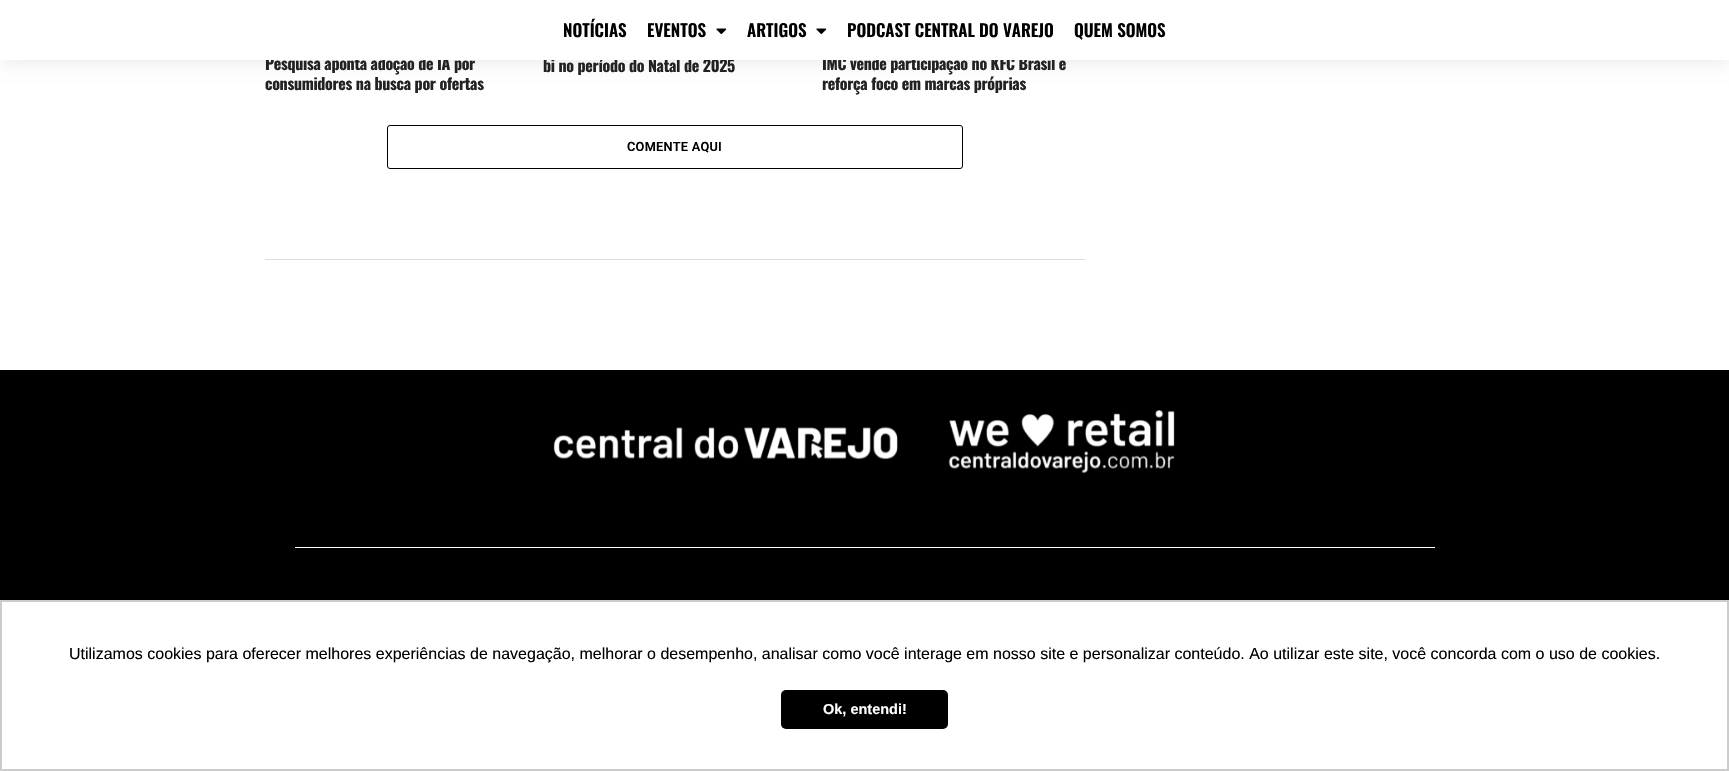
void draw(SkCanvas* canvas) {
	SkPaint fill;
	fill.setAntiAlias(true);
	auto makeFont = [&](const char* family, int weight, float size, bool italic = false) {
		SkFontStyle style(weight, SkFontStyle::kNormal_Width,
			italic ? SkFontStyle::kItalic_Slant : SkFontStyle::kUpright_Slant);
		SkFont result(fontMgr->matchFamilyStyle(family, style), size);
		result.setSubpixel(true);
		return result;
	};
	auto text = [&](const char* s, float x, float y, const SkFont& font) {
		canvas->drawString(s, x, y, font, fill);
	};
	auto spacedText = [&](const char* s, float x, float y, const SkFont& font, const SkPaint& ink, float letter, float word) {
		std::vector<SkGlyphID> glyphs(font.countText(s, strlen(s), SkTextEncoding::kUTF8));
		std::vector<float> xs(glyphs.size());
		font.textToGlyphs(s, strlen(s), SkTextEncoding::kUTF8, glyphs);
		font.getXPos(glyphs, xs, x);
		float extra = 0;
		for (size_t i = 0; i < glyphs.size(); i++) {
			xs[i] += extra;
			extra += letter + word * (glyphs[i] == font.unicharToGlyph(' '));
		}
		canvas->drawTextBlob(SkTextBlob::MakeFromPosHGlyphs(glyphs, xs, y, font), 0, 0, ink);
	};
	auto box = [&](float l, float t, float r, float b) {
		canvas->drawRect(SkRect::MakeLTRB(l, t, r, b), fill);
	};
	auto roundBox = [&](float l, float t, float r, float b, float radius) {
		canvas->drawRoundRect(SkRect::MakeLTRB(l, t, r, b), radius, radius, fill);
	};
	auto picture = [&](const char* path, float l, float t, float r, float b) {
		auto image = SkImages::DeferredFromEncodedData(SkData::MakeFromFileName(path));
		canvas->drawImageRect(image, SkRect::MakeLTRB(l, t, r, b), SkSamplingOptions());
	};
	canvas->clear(0xFFFFFFFF);
	fill.setColor(0x1A000000);
	fill.setMaskFilter(SkMaskFilter::MakeBlur(kNormal_SkBlurStyle, 10));
	canvas->drawRect(SkRect::MakeLTRB(0, 0, 1729, 60), fill);
	fill.setMaskFilter(nullptr);
	fill.setColor(0xFFDDDDDD);
	box(265, 259, 1085, 260);
	fill.setStyle(SkPaint::kStroke_Style);
	fill.setStrokeWidth(1);
	fill.setColor(0xFF000000);
	canvas->drawRoundRect(SkRect::MakeLTRB(387.5f, 125.5f, 962.5f, 168.5f), 2.5f, 2.5f, fill);
	fill.setStyle(SkPaint::kFill_Style);
	box(0, 370, 1729, 600);
	picture("image1.png", 553, 410, 1175, 474);
	fill.setColor(0xFFFFFFFF);
	box(295, 547, 1435, 548);
	fill.setStyle(SkPaint::kStroke_Style);
	fill.setStrokeWidth(2);
	fill.setColor(0xFFCCCCCC);
	canvas->drawRect(SkRect::MakeLTRB(1, 601, 1728, 770), fill);
	fill.setStyle(SkPaint::kFill_Style);
	fill.setColor(0xFF000000);
	roundBox(781, 690, 948, 729, 5);
	auto font1 = makeFont("Oswald", 700, 16);
	fill.setColor(0xFF222222);
	spacedText("Pesquisa aponta adoção de IA por", 265, 70, font1, fill, -0.3f, 0);
	spacedText("consumidores na busca por ofertas", 265, 90, font1, fill, -0.3f, 0);
	spacedText("bi no período do Natal de 2025", 543, 72, font1, fill, -0.3f, 0);
	spacedText("IMC vende participação no KFC Brasil e", 822, 70, font1, fill, -0.3f, 0);
	fill.setColor(0xFFFFFFFF);
	box(0, 0, 1729, 60);
	auto font2 = makeFont("Oswald", 600, 17);
	fill.setColor(0xFF000000);
	text("QUEM SOMOS", 1074, 37, font2);
	text("PODCAST CENTRAL DO VAREJO", 847, 37, font2);
	picture("image0.png", 816, 28, 827, 35);
	text("ARTIGOS", 747, 37, font2);
	picture("image0.png", 716, 28, 727, 35);
	text("EVENTOS", 647, 37, font2);
	text("NOTÍCIAS", 563, 37, font2);
	fill.setColor(0xFF222222);
	spacedText("reforça foco em marcas próprias", 822, 90, font1, fill, -0.3f, 0);
	auto font3 = makeFont("Roboto", 600, 12.75f);
	fill.setColor(0xFF000000);
	spacedText("COMENTE AQUI", 627, 151, font3, fill, 0.25f, 0);
	auto font4 = makeFont("Liberation Sans", 400, 16);
	text("Utilizamos cookies para oferecer melhores experiências de navegação, melhorar o desempenho, analisar como você interage em nosso site e personalizar conteúdo. Ao utilizar este site, você concorda com o uso de cookies.", 69, 659, font4);
	auto font5 = makeFont("Liberation Sans", 700, 14.5f);
	fill.setColor(0xFFFFFFFF);
	text("Ok, entendi!", 823, 714, font5);
}
